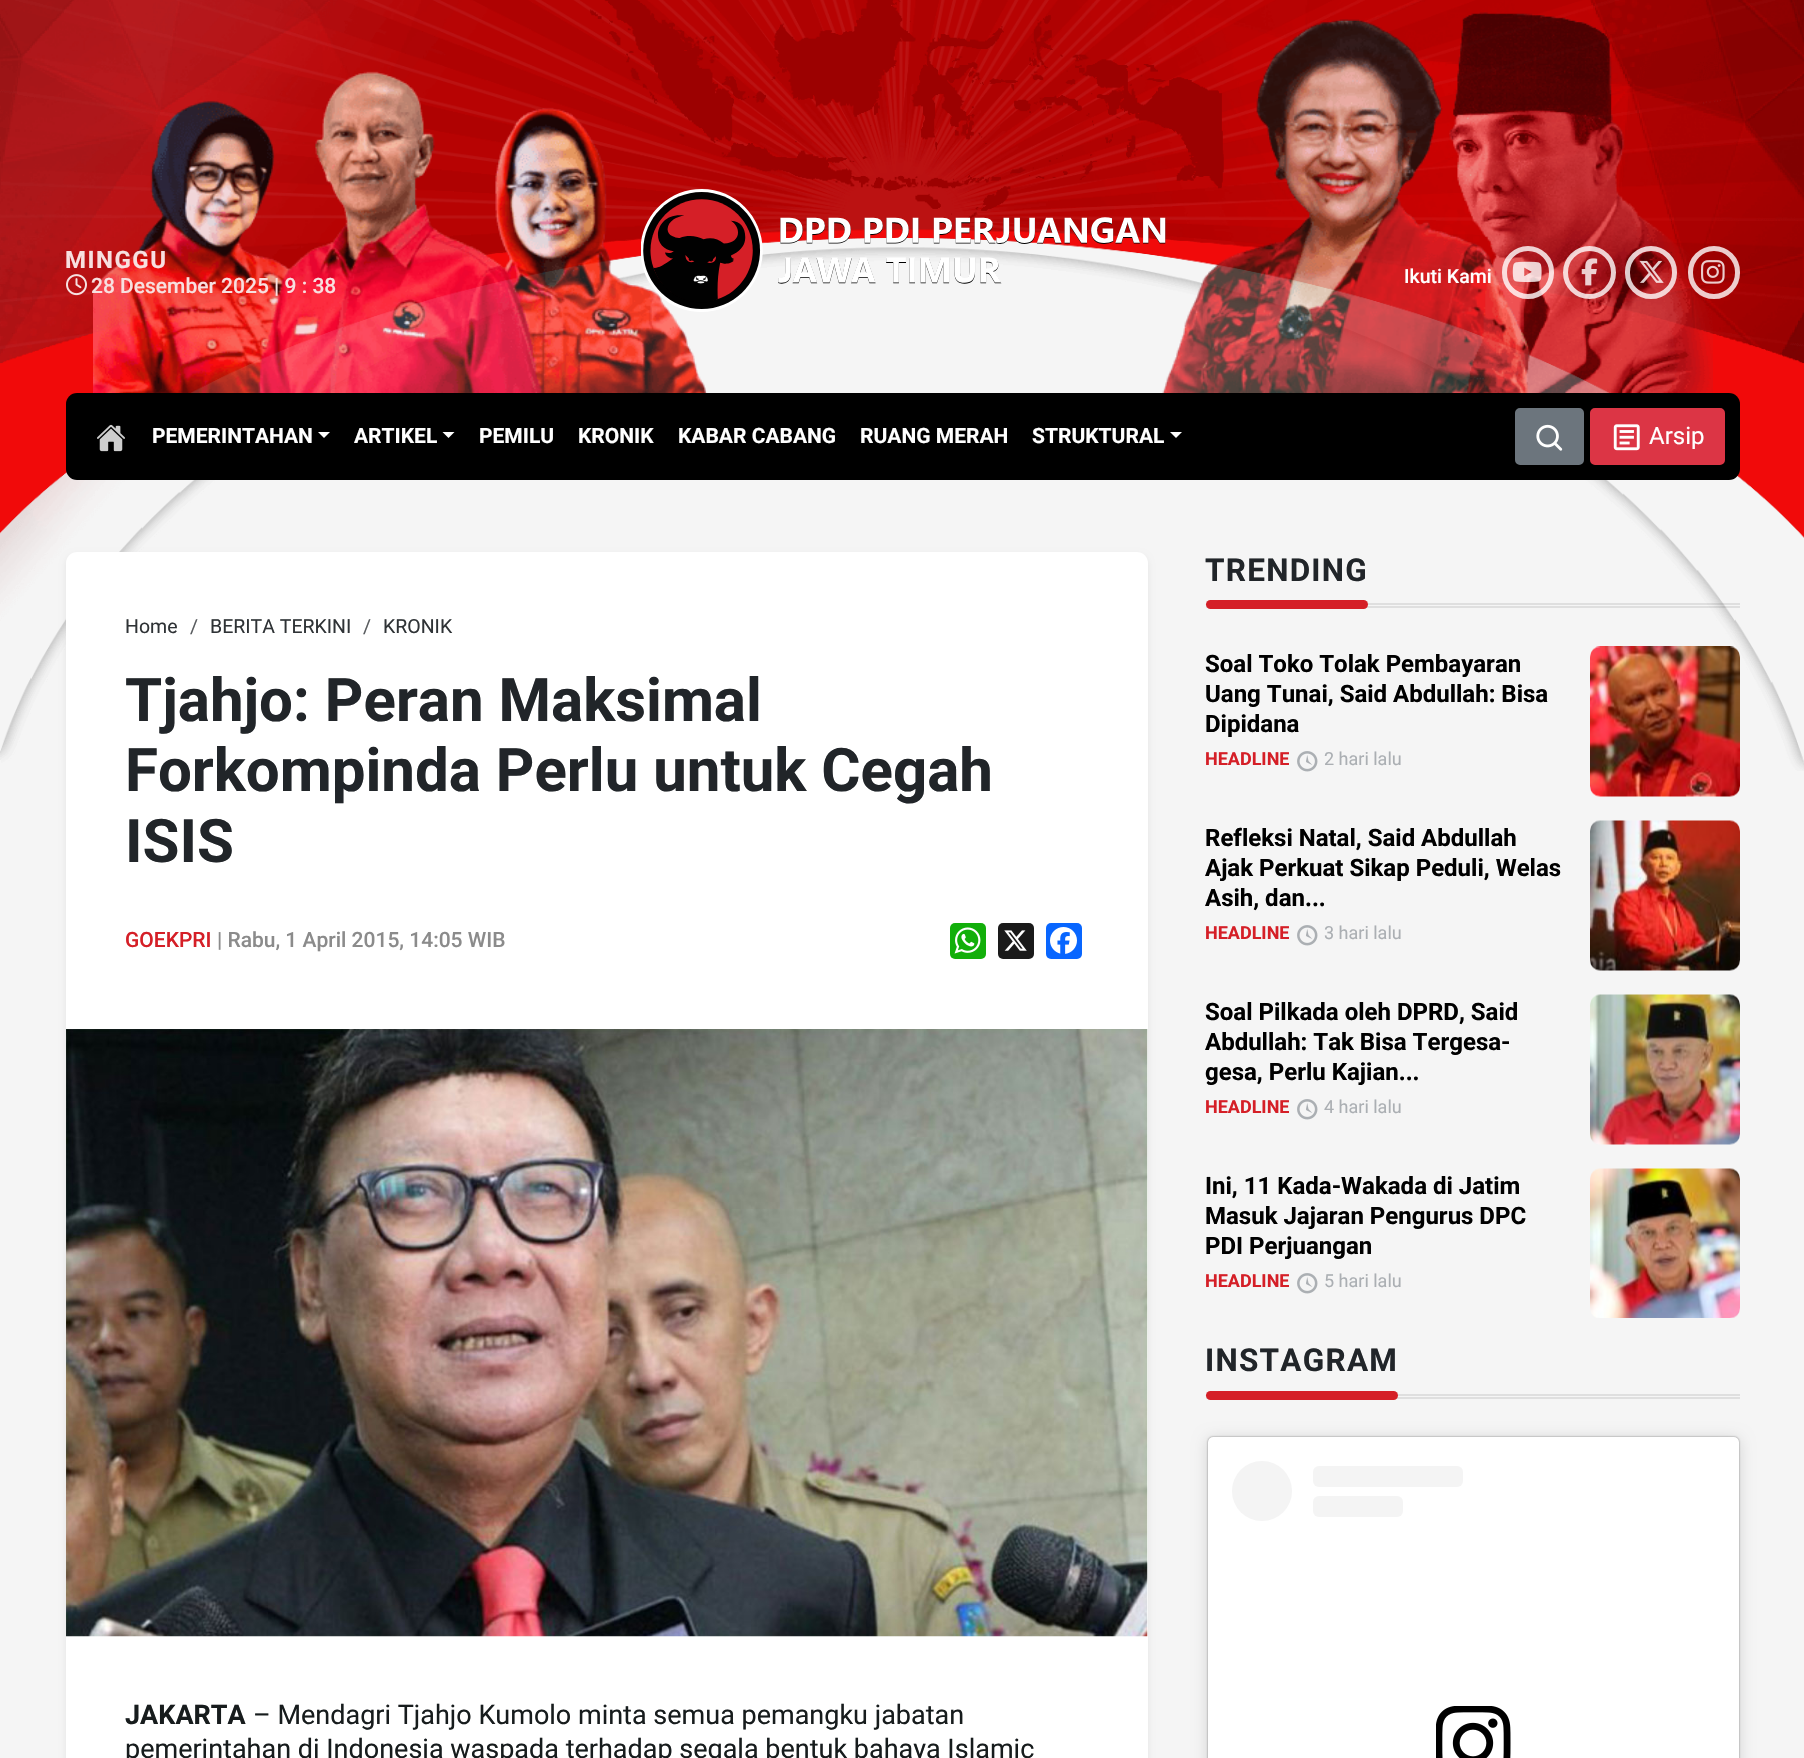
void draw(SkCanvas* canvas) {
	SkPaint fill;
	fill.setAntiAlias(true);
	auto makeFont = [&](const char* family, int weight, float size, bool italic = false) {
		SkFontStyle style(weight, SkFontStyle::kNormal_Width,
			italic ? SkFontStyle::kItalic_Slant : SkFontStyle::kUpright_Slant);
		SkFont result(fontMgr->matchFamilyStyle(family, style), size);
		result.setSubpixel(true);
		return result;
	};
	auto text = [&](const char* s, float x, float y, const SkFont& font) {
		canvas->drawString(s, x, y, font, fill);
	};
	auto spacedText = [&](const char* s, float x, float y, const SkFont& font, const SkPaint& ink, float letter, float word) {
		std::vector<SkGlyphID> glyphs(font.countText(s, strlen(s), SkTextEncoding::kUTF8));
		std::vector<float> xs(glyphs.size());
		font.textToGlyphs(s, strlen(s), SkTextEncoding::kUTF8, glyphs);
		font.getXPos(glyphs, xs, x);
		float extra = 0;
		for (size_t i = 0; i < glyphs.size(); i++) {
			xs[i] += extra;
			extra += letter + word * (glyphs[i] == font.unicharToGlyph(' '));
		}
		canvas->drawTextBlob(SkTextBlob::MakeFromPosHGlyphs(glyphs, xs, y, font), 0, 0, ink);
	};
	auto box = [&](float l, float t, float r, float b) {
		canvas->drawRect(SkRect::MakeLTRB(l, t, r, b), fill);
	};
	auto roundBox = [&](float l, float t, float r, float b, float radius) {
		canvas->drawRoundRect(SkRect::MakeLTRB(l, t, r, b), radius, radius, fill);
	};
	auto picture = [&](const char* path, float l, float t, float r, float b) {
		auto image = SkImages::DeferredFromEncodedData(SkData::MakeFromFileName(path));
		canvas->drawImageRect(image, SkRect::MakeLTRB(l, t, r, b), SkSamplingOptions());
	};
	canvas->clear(0xFFF5F5F5);
	picture("image0.png", 0, 0, 1804, 771);
	picture("image1.png", 93, 12, 1713, 393);
	picture("image2.png", 66, 274, 87, 296);
	picture("image3.png", 641, 189, 1166, 312);
	fill.setStyle(SkPaint::kStroke_Style);
	fill.setStrokeWidth(5);
	fill.setColor(0xCCFFFFFF);
	canvas->drawRoundRect(SkRect::MakeLTRB(1504.5f, 248.5f, 1551.5f, 296.5f), 23.5f, 23.5f, fill);
	picture("image4.png", 1512, 261, 1542, 282);
	canvas->drawCircle(1589.5f, 272.5f, 24, fill);
	picture("image5.png", 1581, 258, 1598, 286);
	canvas->drawRoundRect(SkRect::MakeLTRB(1627.5f, 248.5f, 1674.5f, 296.5f), 23.5f, 23.5f, fill);
	picture("image6.png", 1639, 260, 1664, 283);
	canvas->drawRoundRect(SkRect::MakeLTRB(1690.5f, 248.5f, 1737.5f, 296.5f), 23.5f, 23.5f, fill);
	picture("image7.png", 1701, 260, 1725, 284);
	fill.setStyle(SkPaint::kFill_Style);
	fill.setColor(0xFF000000);
	roundBox(66, 393, 1740, 480, 11);
	picture("image8.png", 97, 424, 125, 452);
	fill.setColor(0xFFFFFFFF);
	canvas->drawPath(SkPathBuilder().moveTo(318, 432).lineTo(330, 432).lineTo(324, 438).close().detach(), fill);
	canvas->drawPath(SkPathBuilder().moveTo(442.5f, 432).lineTo(454.5f, 432).lineTo(448.5f, 438).close().detach(), fill);
	canvas->drawPath(SkPathBuilder().moveTo(1170, 432).lineTo(1182, 432).lineTo(1176, 438).close().detach(), fill);
	fill.setColor(0xFF6C757D);
	canvas->drawRoundRect(SkRect::MakeLTRB(1516, 409, 1583, 464), 4, 4, fill);
	fill.setStyle(SkPaint::kStroke_Style);
	fill.setStrokeWidth(2);
	canvas->drawRoundRect(SkRect::MakeLTRB(1516, 409, 1583, 464), 4, 4, fill);
	picture("image9.png", 1536, 424, 1563, 451);
	fill.setStyle(SkPaint::kFill_Style);
	fill.setColor(0xFFDC3545);
	canvas->drawRoundRect(SkRect::MakeLTRB(1591, 409, 1724, 464), 4, 4, fill);
	fill.setStyle(SkPaint::kStroke_Style);
	canvas->drawRoundRect(SkRect::MakeLTRB(1591, 409, 1724, 464), 4, 4, fill);
	picture("image10.png", 1613, 424, 1640, 451);
	fill.setStyle(SkPaint::kFill_Style);
	fill.setColor(0x12000000);
	fill.setMaskFilter(SkMaskFilter::MakeBlur(kNormal_SkBlurStyle, 3));
	canvas->drawRoundRect(SkRect::MakeLTRB(66, 555, 1148, 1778), 11, 11, fill);
	fill.setMaskFilter(nullptr);
	fill.setColor(0xFFFFFFFF);
	roundBox(66, 552, 1148, 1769, 11);
	fill.setColor(0xFF12AF0A);
	roundBox(950, 923, 986, 959, 5);
	picture("image11.png", 954, 927, 981, 954);
	fill.setColor(0xFF1A1A1A);
	roundBox(998, 923, 1034, 959, 5);
	picture("image12.png", 1004, 930, 1027, 951);
	fill.setColor(0xFF0866FF);
	roundBox(1046, 923, 1082, 959, 5);
	picture("image13.png", 1050, 927, 1077, 954);
	picture("image14.png", 66, 1029, 1148, 1637);
	fill.setColor(0x17000000);
	box(1206, 603, 1740, 605);
	box(1206, 606, 1740, 608);
	fill.setColor(0xFFD51F27);
	roundBox(1206, 600, 1368, 609, 4.5f);
	picture("image15.png", 1297, 751, 1318, 772);
	picture("image16.png", 1590, 646, 1740, 797);
	picture("image15.png", 1297, 925, 1318, 946);
	picture("image17.png", 1590, 820, 1740, 971);
	picture("image15.png", 1297, 1099, 1318, 1120);
	picture("image18.png", 1590, 994, 1740, 1145);
	picture("image15.png", 1297, 1273, 1318, 1294);
	picture("image19.png", 1590, 1168, 1740, 1318);
	fill.setColor(0xFFDFDFDF);
	box(1206, 1394, 1740, 1396);
	box(1206, 1397, 1740, 1399);
	fill.setColor(0xFFD51F27);
	roundBox(1206, 1391, 1398, 1400, 4.5f);
	fill.setColor(0x26000000);
	fill.setMaskFilter(SkMaskFilter::MakeBlur(kNormal_SkBlurStyle, 7.5f));
	canvas->drawRoundRect(SkRect::MakeLTRB(1208, 1439, 1739, 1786), 5, 5, fill);
	fill.setMaskFilter(nullptr);
	fill.setColor(0x80000000);
	fill.setMaskFilter(SkMaskFilter::MakeBlur(kNormal_SkBlurStyle, 1));
	canvas->drawRoundRect(SkRect::MakeLTRB(1208, 1437, 1739, 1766), 5, 5, fill);
	fill.setMaskFilter(nullptr);
	fill.setColor(0xFFFFFFFF);
	roundBox(1208, 1437, 1739, 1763, 5);
	fill.setColor(0xFFF4F4F4);
	canvas->drawCircle(1262, 1491, 30, fill);
	roundBox(1313, 1466, 1463, 1487, 6);
	roundBox(1313, 1496, 1403, 1517, 6);
	picture("image20.png", 1436, 1706, 1511, 1758);
	auto font1 = makeFont("Roboto", 700, 24);
	fill.setColor(0xFFF7E0E0);
	spacedText("MINGGU", 65, 268, font1, fill, 1.5f, 0);
	auto font2 = makeFont("Roboto", 500, 21);
	text("28 Desember 2025 | 9 : 38", 91, 293, font2);
	auto font3 = makeFont("Roboto", 500, 19.5f);
	fill.setColor(0xFFFFFFFF);
	text("Ikuti Kami", 1404, 283, font3);
	auto font4 = makeFont("Roboto", 700, 21);
	text("PEMERINTAHAN", 152, 443, font4);
	text("ARTIKEL", 354, 443, font4);
	text("PEMILU", 479, 443, font4);
	text("KRONIK", 578, 443, font4);
	text("KABAR CABANG", 678, 443, font4);
	text("RUANG MERAH", 860, 443, font4);
	text("STRUKTURAL", 1032, 443, font4);
	auto font5 = makeFont("Roboto", 400, 24);
	text("Arsip", 1649, 444, font5);
	auto font6 = makeFont("Roboto", 400, 19.5f);
	fill.setColor(0xFF2F3336);
	text("Home", 125, 633, font6);
	fill.setColor(0xFF595C5F);
	text("/", 190, 633, font6);
	fill.setColor(0xFF2F3336);
	text("BERITA TERKINI", 210, 633, font6);
	fill.setColor(0xFF595C5F);
	text("/", 363, 633, font6);
	fill.setColor(0xFF2F3336);
	text("KRONIK", 383, 633, font6);
	auto font7 = makeFont("Roboto", 700, 60);
	fill.setColor(0xFF212529);
	text("Tjahjo: Peran Maksimal", 125, 721, font7);
	text("Forkompinda Perlu untuk Cegah", 125, 791, font7);
	text("ISIS", 125, 862, font7);
	fill.setColor(0xFFD51F27);
	text("GOEKPRI", 125, 947, font2);
	fill.setColor(0xFF8B8B8B);
	text("| Rabu, 1 April 2015, 14:05 WIB", 217, 947, font2);
	auto font8 = makeFont("Roboto", 700, 27);
	fill.setColor(0xFF171C1D);
	text("JAKARTA", 125, 1724, font8);
	auto font9 = makeFont("Roboto", 400, 27);
	text("– Mendagri Tjahjo Kumolo minta semua pemangku jabatan", 253, 1724, font9);
	text("pemerintahan di Indonesia waspada terhadap segala bentuk bahaya Islamic", 125, 1758, font9);
	auto font10 = makeFont("Roboto", 700, 31.5f);
	fill.setColor(0xFF212529);
	spacedText("TRENDING", 1205, 581, font10, fill, 1.25f, 0);
	fill.setColor(0xFF000000);
	text("Soal Toko Tolak Pembayaran", 1205, 672, font1);
	text("Uang Tunai, Said Abdullah: Bisa", 1205, 702, font1);
	text("Dipidana", 1205, 732, font1);
	auto font11 = makeFont("Roboto", 700, 18);
	fill.setColor(0xFFD51F27);
	text("HEADLINE", 1205, 765, font11);
	auto font12 = makeFont("Roboto", 400, 18);
	fill.setColor(0xFFABAFB3);
	text("2 hari lalu", 1324, 765, font12);
	fill.setColor(0xFF000000);
	text("Refleksi Natal, Said Abdullah", 1205, 846, font1);
	text("Ajak Perkuat Sikap Peduli, Welas", 1205, 876, font1);
	text("Asih, dan...", 1205, 906, font1);
	fill.setColor(0xFFD51F27);
	text("HEADLINE", 1205, 939, font11);
	fill.setColor(0xFFABAFB3);
	text("3 hari lalu", 1324, 939, font12);
	fill.setColor(0xFF000000);
	text("Soal Pilkada oleh DPRD, Said", 1205, 1020, font1);
	text("Abdullah: Tak Bisa Tergesa-", 1205, 1050, font1);
	text("gesa, Perlu Kajian...", 1205, 1080, font1);
	fill.setColor(0xFFD51F27);
	text("HEADLINE", 1205, 1113, font11);
	fill.setColor(0xFFABAFB3);
	text("4 hari lalu", 1324, 1113, font12);
	fill.setColor(0xFF000000);
	text("Ini, 11 Kada-Wakada di Jatim", 1205, 1194, font1);
	text("Masuk Jajaran Pengurus DPC", 1205, 1224, font1);
	text("PDI Perjuangan", 1205, 1254, font1);
	fill.setColor(0xFFD51F27);
	text("HEADLINE", 1205, 1287, font11);
	fill.setColor(0xFFABAFB3);
	text("5 hari lalu", 1324, 1287, font12);
	fill.setColor(0xFF212529);
	spacedText("INSTAGRAM", 1205, 1371, font10, fill, 1.25f, 0);
}
